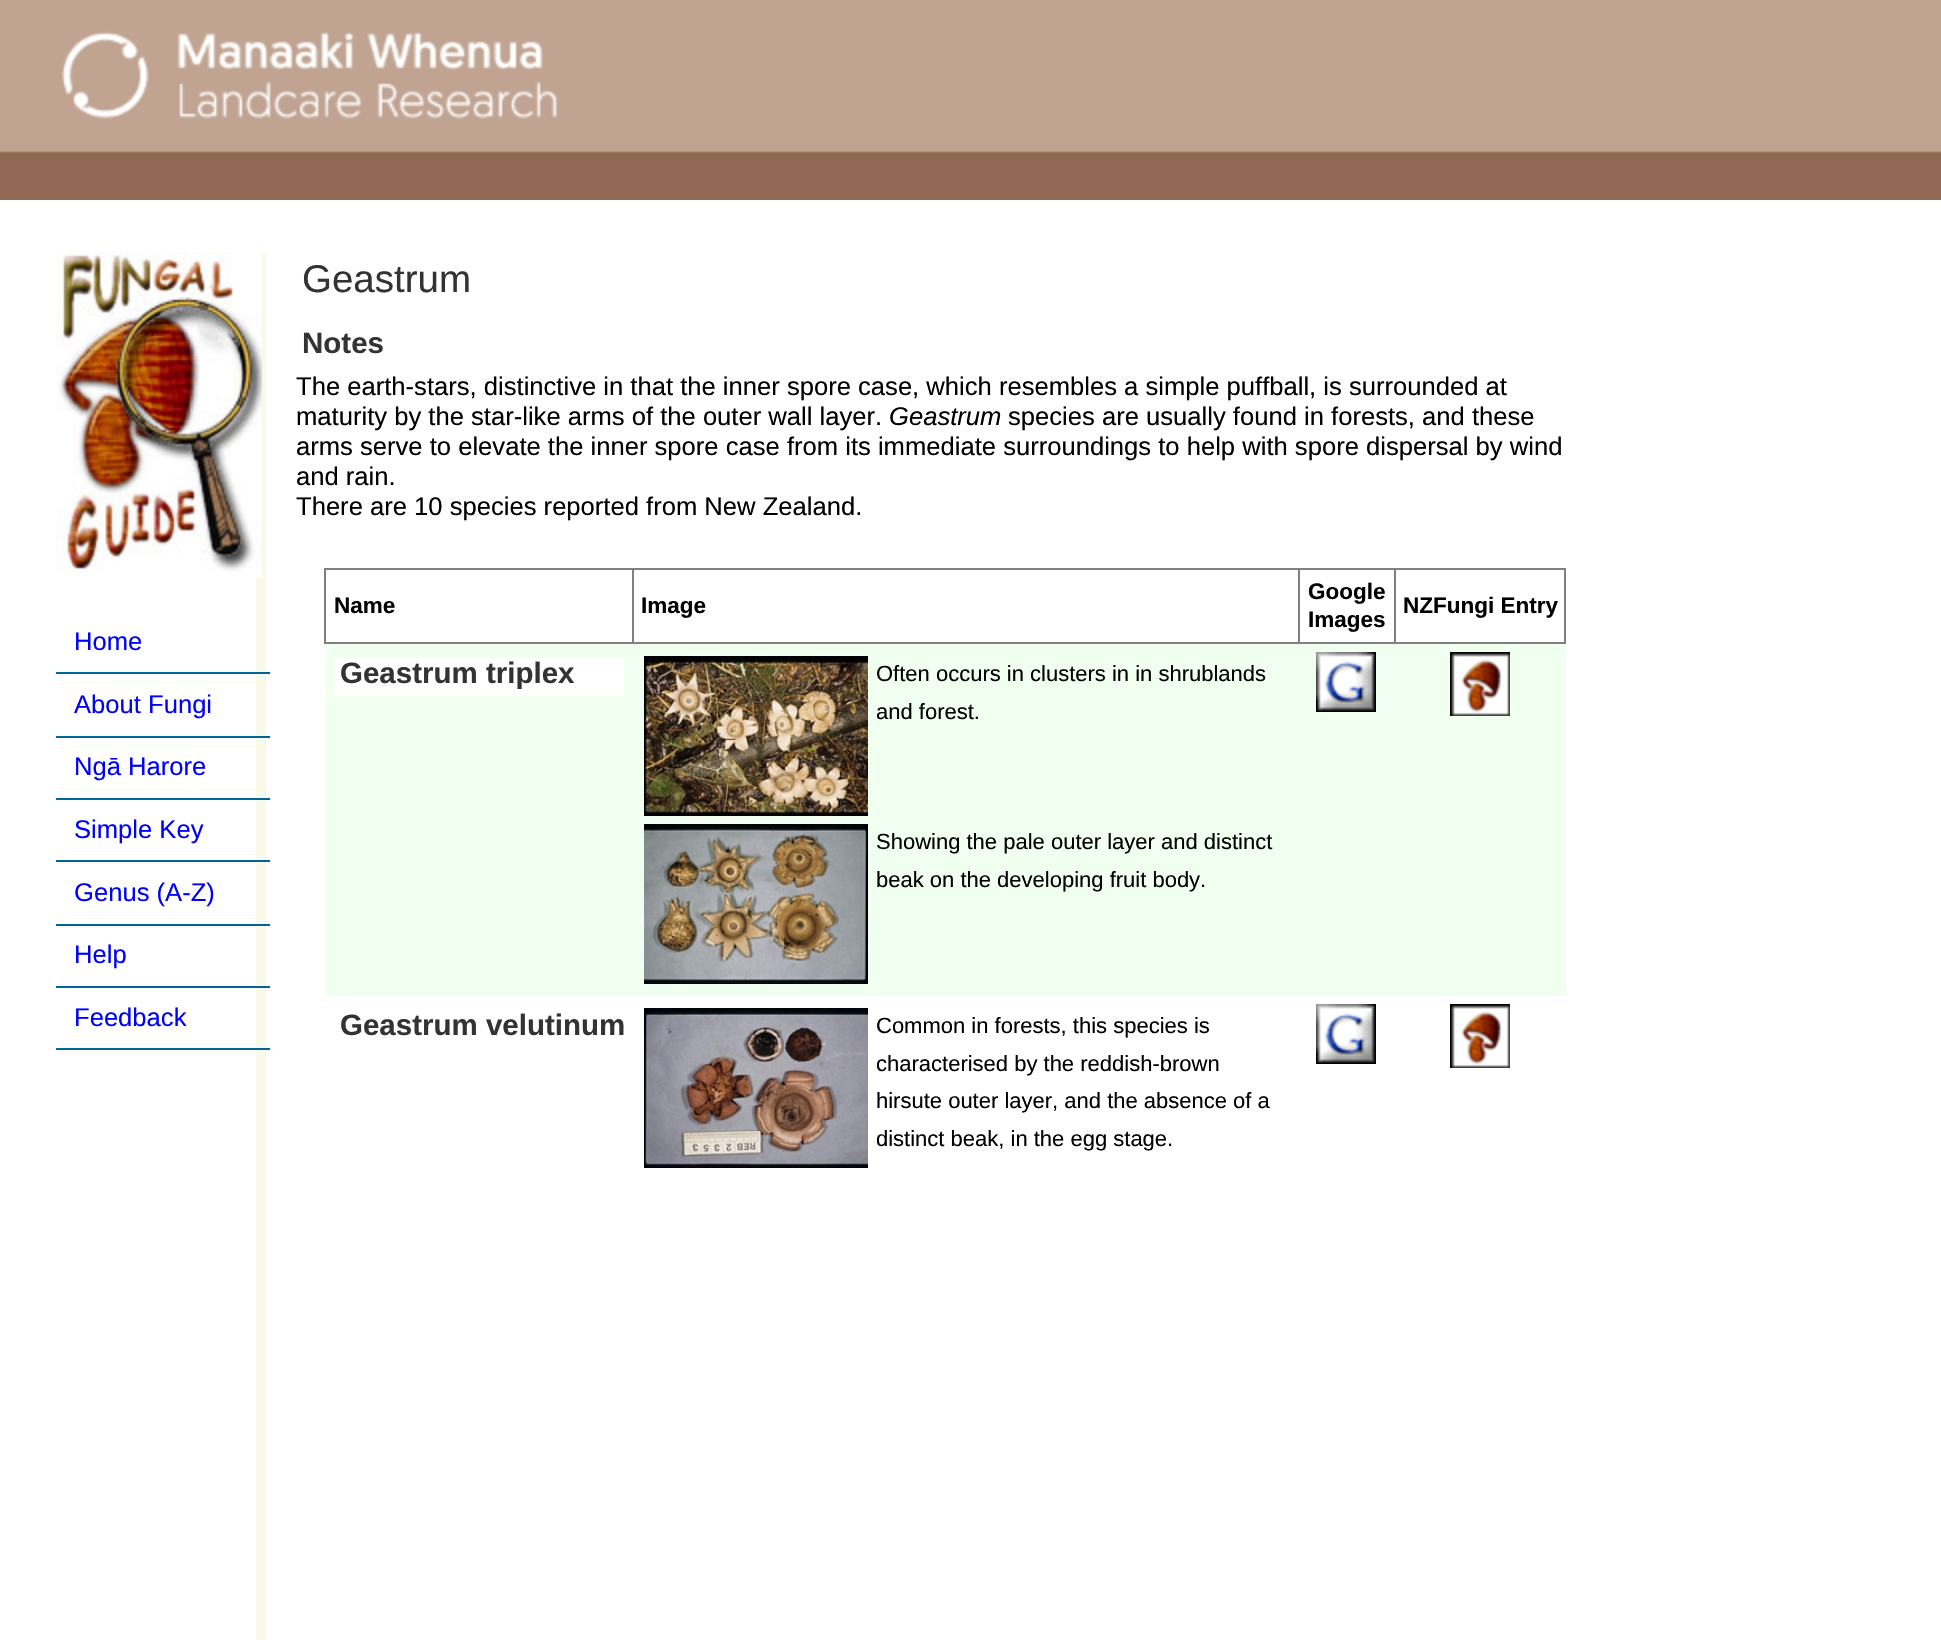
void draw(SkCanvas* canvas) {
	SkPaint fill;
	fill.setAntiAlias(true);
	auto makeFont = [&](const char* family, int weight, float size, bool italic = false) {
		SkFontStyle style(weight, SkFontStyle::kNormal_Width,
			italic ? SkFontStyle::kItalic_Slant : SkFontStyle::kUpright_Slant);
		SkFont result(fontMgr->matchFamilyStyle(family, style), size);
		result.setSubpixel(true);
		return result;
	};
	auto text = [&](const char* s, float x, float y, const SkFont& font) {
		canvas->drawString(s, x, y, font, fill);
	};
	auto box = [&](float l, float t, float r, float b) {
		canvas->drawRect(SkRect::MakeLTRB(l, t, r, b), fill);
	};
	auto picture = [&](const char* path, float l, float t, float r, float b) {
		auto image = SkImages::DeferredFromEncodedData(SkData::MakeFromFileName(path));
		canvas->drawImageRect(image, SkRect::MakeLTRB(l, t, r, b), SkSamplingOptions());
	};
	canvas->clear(0xFFFFFFFF);
	picture("image0.png", 0, 0, 1941, 200);
	picture("image1.png", 61, 31, 558, 119);
	fill.setColor(0xFFF9F9E9);
	box(256, 252, 266, 1640);
	picture("image2.png", 56, 252, 262, 578);
	fill.setColor(0xFF006699);
	box(56, 672, 270, 674);
	box(56, 736, 270, 738);
	box(56, 798, 270, 800);
	box(56, 860, 270, 862);
	box(56, 924, 270, 926);
	box(56, 986, 270, 988);
	box(56, 1048, 270, 1050);
	fill.setColor(0xFF808080);
	box(1394, 568, 1566, 570);
	box(1564, 568, 1566, 644);
	box(1394, 642, 1566, 644);
	box(1394, 568, 1396, 644);
	box(1298, 568, 1396, 570);
	box(1298, 642, 1396, 644);
	box(1298, 568, 1300, 644);
	box(632, 568, 1300, 570);
	box(632, 642, 1300, 644);
	box(632, 568, 634, 644);
	box(324, 568, 634, 570);
	box(324, 642, 634, 644);
	box(324, 568, 326, 644);
	fill.setColor(0xFFF0FFF0);
	box(326, 644, 1566, 996);
	fill.setColor(0xFFFFFFFF);
	box(334, 658, 624, 696);
	picture("image3.png", 644, 656, 868, 816);
	picture("image4.png", 644, 824, 868, 984);
	picture("image5.png", 1316, 652, 1376, 712);
	picture("image6.png", 1450, 652, 1510, 716);
	picture("image7.png", 644, 1008, 868, 1168);
	picture("image5.png", 1316, 1004, 1376, 1064);
	picture("image6.png", 1450, 1004, 1510, 1068);
	auto font1 = makeFont("Liberation Sans", 400, 25.6f);
	fill.setColor(0xFF0000FF);
	text("Home", 74, 650, font1);
	text("About Fungi", 74, 713, font1);
	text("Ngā Harore", 74, 775, font1);
	text("Simple Key", 74, 838, font1);
	text("Genus (A-Z)", 74, 901, font1);
	text("Help", 74, 963, font1);
	text("Feedback", 74, 1026, font1);
	auto font2 = makeFont("Liberation Sans", 400, 38.5f);
	fill.setColor(0xFF333333);
	text("Geastrum", 302, 292, font2);
	auto font3 = makeFont("Liberation Sans", 700, 29.5f);
	text("Notes", 302, 353, font3);
	fill.setColor(0xFF000000);
	text("The earth-stars, distinctive in that the inner spore case, which resembles a simple puffball, is surrounded at", 296, 395, font1);
	text("maturity by the star-like arms of the outer wall layer.", 296, 425, font1);
	auto font4 = makeFont("Liberation Sans", 400, 25.6f, true);
	text("Geastrum", 889, 425, font4);
	text("species are usually found in forests, and these", 1008, 425, font1);
	text("arms serve to elevate the inner spore case from its immediate surroundings to help with spore dispersal by wind", 296, 455, font1);
	text("and rain.", 296, 485, font1);
	text("There are 10 species reported from New Zealand.", 296, 515, font1);
	auto font5 = makeFont("Liberation Sans", 700, 22.5f);
	text("Name", 334, 613, font5);
	text("Image", 641, 613, font5);
	text("Google", 1308, 599, font5);
	text("Images", 1308, 627, font5);
	text("NZFungi Entry", 1403, 613, font5);
	fill.setColor(0xFF333333);
	text("Geastrum triplex", 340, 683, font3);
	auto font6 = makeFont("Liberation Sans", 400, 22);
	fill.setColor(0xFF000000);
	text("Often occurs in clusters in in shrublands", 876, 681, font6);
	text("and forest.", 876, 719, font6);
	text("Showing the pale outer layer and distinct", 876, 849, font6);
	text("beak on the developing fruit body.", 876, 887, font6);
	fill.setColor(0xFF333333);
	text("Geastrum velutinum", 340, 1035, font3);
	fill.setColor(0xFF000000);
	text("Common in forests, this species is", 876, 1033, font6);
	text("characterised by the reddish-brown", 876, 1071, font6);
	text("hirsute outer layer, and the absence of a", 876, 1108, font6);
	text("distinct beak, in the egg stage.", 876, 1146, font6);
}
